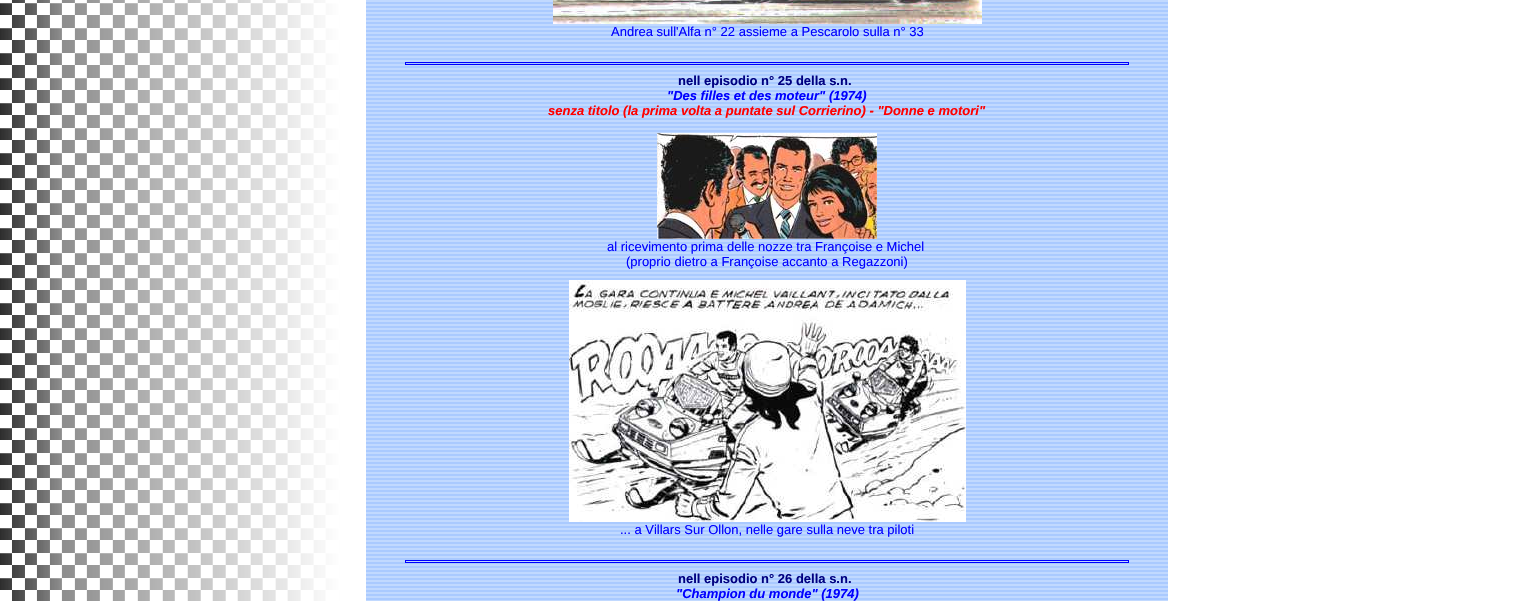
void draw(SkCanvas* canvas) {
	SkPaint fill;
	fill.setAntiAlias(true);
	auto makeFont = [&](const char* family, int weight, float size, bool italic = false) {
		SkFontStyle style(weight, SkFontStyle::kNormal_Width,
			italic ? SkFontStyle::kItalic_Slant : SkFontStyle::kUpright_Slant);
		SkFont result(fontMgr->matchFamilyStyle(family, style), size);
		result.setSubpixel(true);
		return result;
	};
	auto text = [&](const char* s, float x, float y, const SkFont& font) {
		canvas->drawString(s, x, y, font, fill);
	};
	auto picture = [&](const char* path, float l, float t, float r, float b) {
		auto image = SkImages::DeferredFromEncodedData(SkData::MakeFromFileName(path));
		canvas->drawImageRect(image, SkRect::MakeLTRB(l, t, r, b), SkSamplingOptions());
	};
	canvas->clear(0xFFFFFFFF);
	picture("image0.png", 0, 0, 340, 601);
	picture("image1.png", 366, 0, 1168, 601);
	picture("image2.png", 553, 0, 982, 24);
	fill.setStyle(SkPaint::kStroke_Style);
	fill.setStrokeWidth(1);
	fill.setColor(0xFF0000FF);
	canvas->drawRect(SkRect::MakeLTRB(405.5f, 62.5f, 1128.5f, 64.5f), fill);
	picture("image3.png", 657, 133, 877, 239);
	picture("image4.png", 569, 280, 966, 522);
	canvas->drawRect(SkRect::MakeLTRB(405.5f, 560.5f, 1128.5f, 562.5f), fill);
	auto font1 = makeFont("Liberation Sans", 400, 13);
	fill.setStyle(SkPaint::kFill_Style);
	text("Andrea sull'Alfa n° 22 assieme a Pescarolo sulla n° 33", 611, 36, font1);
	auto font2 = makeFont("Liberation Sans", 700, 13);
	fill.setColor(0xFF000080);
	text("nell episodio n° 25 della s.n.", 678, 85, font2);
	auto font3 = makeFont("Liberation Sans", 700, 13, true);
	fill.setColor(0xFF0000FF);
	text("\"Des filles et des moteur\" (1974)", 667, 100, font3);
	fill.setColor(0xFFFF0000);
	text("senza titolo (la prima volta a puntate sul Corrierino) - \"Donne e motori\"", 548, 115, font3);
	fill.setColor(0xFF0000FF);
	text("al ricevimento prima delle nozze tra Françoise e Michel", 607, 251, font1);
	text("(proprio dietro a Françoise accanto a Regazzoni)", 626, 266, font1);
	text("... a Villars Sur Ollon, nelle gare sulla neve tra piloti", 620, 534, font1);
	fill.setColor(0xFF000080);
	text("nell episodio n° 26 della s.n.", 678, 583, font2);
	fill.setColor(0xFF0000FF);
	text("\"Champion du monde\" (1974)", 676, 598, font3);
}
